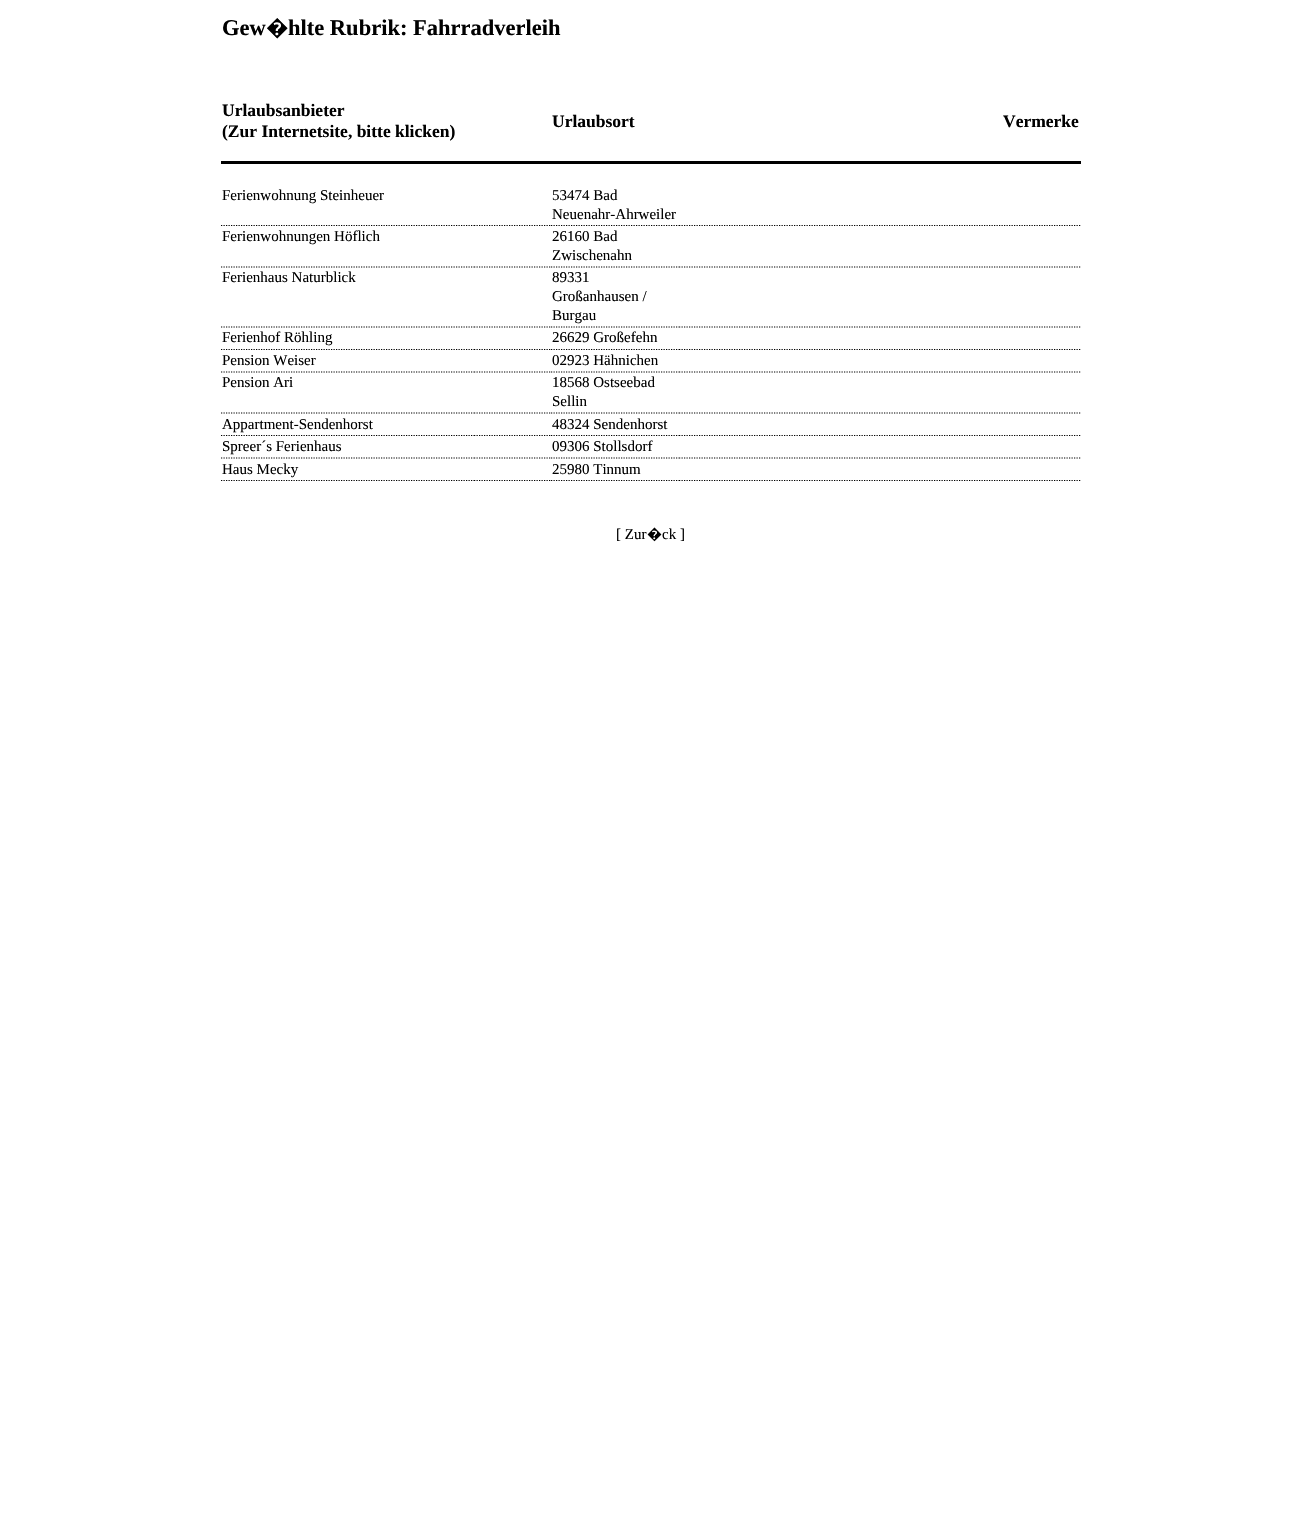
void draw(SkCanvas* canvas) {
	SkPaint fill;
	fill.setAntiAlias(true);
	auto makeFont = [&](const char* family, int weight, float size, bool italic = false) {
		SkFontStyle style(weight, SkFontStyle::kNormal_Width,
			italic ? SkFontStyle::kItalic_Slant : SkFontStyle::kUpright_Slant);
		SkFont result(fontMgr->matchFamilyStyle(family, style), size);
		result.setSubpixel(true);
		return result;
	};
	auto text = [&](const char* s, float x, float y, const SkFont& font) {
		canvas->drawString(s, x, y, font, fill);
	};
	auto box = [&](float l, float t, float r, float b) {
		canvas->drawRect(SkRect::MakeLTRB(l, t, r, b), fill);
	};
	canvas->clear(0xFFFFFFFF);
	fill.setColor(0xFF000000);
	box(221, 161, 1081, 164);
	fill.setStyle(SkPaint::kStroke_Style);
	fill.setStrokeWidth(1.2f);
	fill.setPathEffect(SkDashPathEffect::Make({{1.25f, 1.25f}}, 0));
	canvas->drawPath(SkPathBuilder().moveTo(221, 225.5f).lineTo(474, 225.5f).detach(), fill);
	fill.setPathEffect(nullptr);
	fill.setPathEffect(SkDashPathEffect::Make({{1.25f, 1.25f}}, 0));
	canvas->drawPath(SkPathBuilder().moveTo(551, 225.5f).lineTo(679, 225.5f).detach(), fill);
	fill.setPathEffect(nullptr);
	fill.setPathEffect(SkDashPathEffect::Make({{1.25f, 1.25f}}, 0));
	canvas->drawPath(SkPathBuilder().moveTo(474, 225.5f).lineTo(551, 225.5f).detach(), fill);
	fill.setPathEffect(nullptr);
	fill.setPathEffect(SkDashPathEffect::Make({{1.25f, 1.25f}}, 0));
	canvas->drawPath(SkPathBuilder().moveTo(679, 225.5f).lineTo(1081, 225.5f).detach(), fill);
	fill.setPathEffect(nullptr);
	fill.setPathEffect(SkDashPathEffect::Make({{1.25f, 1.25f}}, 0));
	canvas->drawPath(SkPathBuilder().moveTo(221, 267).lineTo(474, 267).detach(), fill);
	fill.setPathEffect(nullptr);
	fill.setPathEffect(SkDashPathEffect::Make({{1.25f, 1.25f}}, 0));
	canvas->drawPath(SkPathBuilder().moveTo(551, 267).lineTo(679, 267).detach(), fill);
	fill.setPathEffect(nullptr);
	fill.setPathEffect(SkDashPathEffect::Make({{1.25f, 1.25f}}, 0));
	canvas->drawPath(SkPathBuilder().moveTo(474, 267).lineTo(551, 267).detach(), fill);
	fill.setPathEffect(nullptr);
	fill.setPathEffect(SkDashPathEffect::Make({{1.25f, 1.25f}}, 0));
	canvas->drawPath(SkPathBuilder().moveTo(679, 267).lineTo(1081, 267).detach(), fill);
	fill.setPathEffect(nullptr);
	fill.setPathEffect(SkDashPathEffect::Make({{1.25f, 1.25f}}, 0));
	canvas->drawPath(SkPathBuilder().moveTo(221, 327).lineTo(474, 327).detach(), fill);
	fill.setPathEffect(nullptr);
	fill.setPathEffect(SkDashPathEffect::Make({{1.25f, 1.25f}}, 0));
	canvas->drawPath(SkPathBuilder().moveTo(551, 327).lineTo(679, 327).detach(), fill);
	fill.setPathEffect(nullptr);
	fill.setPathEffect(SkDashPathEffect::Make({{1.25f, 1.25f}}, 0));
	canvas->drawPath(SkPathBuilder().moveTo(474, 327).lineTo(551, 327).detach(), fill);
	fill.setPathEffect(nullptr);
	fill.setPathEffect(SkDashPathEffect::Make({{1.25f, 1.25f}}, 0));
	canvas->drawPath(SkPathBuilder().moveTo(679, 327).lineTo(1081, 327).detach(), fill);
	fill.setPathEffect(nullptr);
	fill.setPathEffect(SkDashPathEffect::Make({{1.25f, 1.25f}}, 0));
	canvas->drawPath(SkPathBuilder().moveTo(221, 349.5f).lineTo(474, 349.5f).detach(), fill);
	fill.setPathEffect(nullptr);
	fill.setPathEffect(SkDashPathEffect::Make({{1.25f, 1.25f}}, 0));
	canvas->drawPath(SkPathBuilder().moveTo(551, 349.5f).lineTo(679, 349.5f).detach(), fill);
	fill.setPathEffect(nullptr);
	fill.setPathEffect(SkDashPathEffect::Make({{1.25f, 1.25f}}, 0));
	canvas->drawPath(SkPathBuilder().moveTo(474, 349.5f).lineTo(551, 349.5f).detach(), fill);
	fill.setPathEffect(nullptr);
	fill.setPathEffect(SkDashPathEffect::Make({{1.25f, 1.25f}}, 0));
	canvas->drawPath(SkPathBuilder().moveTo(679, 349.5f).lineTo(1081, 349.5f).detach(), fill);
	fill.setPathEffect(nullptr);
	fill.setPathEffect(SkDashPathEffect::Make({{1.25f, 1.25f}}, 0));
	canvas->drawPath(SkPathBuilder().moveTo(221, 372).lineTo(474, 372).detach(), fill);
	fill.setPathEffect(nullptr);
	fill.setPathEffect(SkDashPathEffect::Make({{1.25f, 1.25f}}, 0));
	canvas->drawPath(SkPathBuilder().moveTo(551, 372).lineTo(679, 372).detach(), fill);
	fill.setPathEffect(nullptr);
	fill.setPathEffect(SkDashPathEffect::Make({{1.25f, 1.25f}}, 0));
	canvas->drawPath(SkPathBuilder().moveTo(474, 372).lineTo(551, 372).detach(), fill);
	fill.setPathEffect(nullptr);
	fill.setPathEffect(SkDashPathEffect::Make({{1.25f, 1.25f}}, 0));
	canvas->drawPath(SkPathBuilder().moveTo(679, 372).lineTo(1081, 372).detach(), fill);
	fill.setPathEffect(nullptr);
	fill.setPathEffect(SkDashPathEffect::Make({{1.25f, 1.25f}}, 0));
	canvas->drawPath(SkPathBuilder().moveTo(221, 413).lineTo(474, 413).detach(), fill);
	fill.setPathEffect(nullptr);
	fill.setPathEffect(SkDashPathEffect::Make({{1.25f, 1.25f}}, 0));
	canvas->drawPath(SkPathBuilder().moveTo(551, 413).lineTo(679, 413).detach(), fill);
	fill.setPathEffect(nullptr);
	fill.setPathEffect(SkDashPathEffect::Make({{1.25f, 1.25f}}, 0));
	canvas->drawPath(SkPathBuilder().moveTo(474, 413).lineTo(551, 413).detach(), fill);
	fill.setPathEffect(nullptr);
	fill.setPathEffect(SkDashPathEffect::Make({{1.25f, 1.25f}}, 0));
	canvas->drawPath(SkPathBuilder().moveTo(679, 413).lineTo(1081, 413).detach(), fill);
	fill.setPathEffect(nullptr);
	fill.setPathEffect(SkDashPathEffect::Make({{1.25f, 1.25f}}, 0));
	canvas->drawPath(SkPathBuilder().moveTo(221, 435.5f).lineTo(474, 435.5f).detach(), fill);
	fill.setPathEffect(nullptr);
	fill.setPathEffect(SkDashPathEffect::Make({{1.25f, 1.25f}}, 0));
	canvas->drawPath(SkPathBuilder().moveTo(551, 435.5f).lineTo(679, 435.5f).detach(), fill);
	fill.setPathEffect(nullptr);
	fill.setPathEffect(SkDashPathEffect::Make({{1.25f, 1.25f}}, 0));
	canvas->drawPath(SkPathBuilder().moveTo(474, 435.5f).lineTo(551, 435.5f).detach(), fill);
	fill.setPathEffect(nullptr);
	fill.setPathEffect(SkDashPathEffect::Make({{1.25f, 1.25f}}, 0));
	canvas->drawPath(SkPathBuilder().moveTo(679, 435.5f).lineTo(1081, 435.5f).detach(), fill);
	fill.setPathEffect(nullptr);
	fill.setPathEffect(SkDashPathEffect::Make({{1.25f, 1.25f}}, 0));
	canvas->drawPath(SkPathBuilder().moveTo(221, 458).lineTo(474, 458).detach(), fill);
	fill.setPathEffect(nullptr);
	fill.setPathEffect(SkDashPathEffect::Make({{1.25f, 1.25f}}, 0));
	canvas->drawPath(SkPathBuilder().moveTo(551, 458).lineTo(679, 458).detach(), fill);
	fill.setPathEffect(nullptr);
	fill.setPathEffect(SkDashPathEffect::Make({{1.25f, 1.25f}}, 0));
	canvas->drawPath(SkPathBuilder().moveTo(474, 458).lineTo(551, 458).detach(), fill);
	fill.setPathEffect(nullptr);
	fill.setPathEffect(SkDashPathEffect::Make({{1.25f, 1.25f}}, 0));
	canvas->drawPath(SkPathBuilder().moveTo(679, 458).lineTo(1081, 458).detach(), fill);
	fill.setPathEffect(nullptr);
	fill.setPathEffect(SkDashPathEffect::Make({{1.25f, 1.25f}}, 0));
	canvas->drawPath(SkPathBuilder().moveTo(221, 480.5f).lineTo(474, 480.5f).detach(), fill);
	fill.setPathEffect(nullptr);
	fill.setPathEffect(SkDashPathEffect::Make({{1.25f, 1.25f}}, 0));
	canvas->drawPath(SkPathBuilder().moveTo(551, 480.5f).lineTo(679, 480.5f).detach(), fill);
	fill.setPathEffect(nullptr);
	fill.setPathEffect(SkDashPathEffect::Make({{1.25f, 1.25f}}, 0));
	canvas->drawPath(SkPathBuilder().moveTo(474, 480.5f).lineTo(551, 480.5f).detach(), fill);
	fill.setPathEffect(nullptr);
	fill.setPathEffect(SkDashPathEffect::Make({{1.25f, 1.25f}}, 0));
	canvas->drawPath(SkPathBuilder().moveTo(679, 480.5f).lineTo(1081, 480.5f).detach(), fill);
	fill.setPathEffect(nullptr);
	auto font1 = makeFont("Liberation Serif", 700, 22.5f);
	fill.setStyle(SkPaint::kFill_Style);
	text("Gew", 222, 35, font1);
	auto font2 = makeFont("Noto Sans", 700, 22.5f);
	text("�", 266, 35, font2);
	text("hlte Rubrik: Fahrradverleih", 288, 35, font1);
	auto font3 = makeFont("Liberation Serif", 700, 17.5f);
	text("Urlaubsanbieter", 222, 116, font3);
	text("(Zur Internetsite, bitte klicken)", 222, 137, font3);
	text("Urlaubsort", 552, 127, font3);
	text("Vermerke", 1003, 127, font3);
	auto font4 = makeFont("Liberation Serif", 400, 15);
	text("Ferienwohnung Steinheuer", 222, 200, font4);
	text("53474 Bad", 552, 200, font4);
	text("Neuenahr-Ahrweiler", 552, 219, font4);
	text("Ferienwohnungen Höflich", 222, 241, font4);
	text("26160 Bad", 552, 241, font4);
	text("Zwischenahn", 552, 260, font4);
	text("Ferienhaus Naturblick", 222, 282, font4);
	text("89331", 552, 282, font4);
	text("Großanhausen /", 552, 301, font4);
	text("Burgau", 552, 320, font4);
	text("Ferienhof Röhling", 222, 342, font4);
	text("26629 Großefehn", 552, 342, font4);
	text("Pension Weiser", 222, 365, font4);
	text("02923 Hähnichen", 552, 365, font4);
	text("Pension Ari", 222, 387, font4);
	text("18568 Ostseebad", 552, 387, font4);
	text("Sellin", 552, 406, font4);
	text("Appartment-Sendenhorst", 222, 429, font4);
	text("48324 Sendenhorst", 552, 429, font4);
	text("Spreer´s Ferienhaus", 222, 451, font4);
	text("09306 Stollsdorf", 552, 451, font4);
	text("Haus Mecky", 222, 474, font4);
	text("25980 Tinnum", 552, 474, font4);
	text("[ Zur", 616, 539, font4);
	auto font5 = makeFont("Noto Sans", 400, 15);
	text("�", 647, 539, font5);
	text("ck ]", 662, 539, font4);
}
